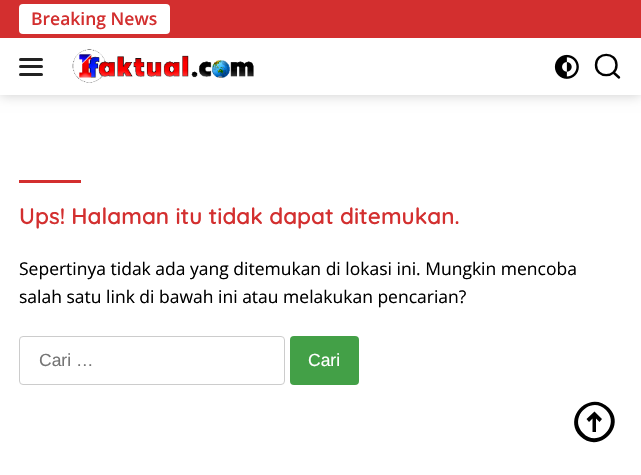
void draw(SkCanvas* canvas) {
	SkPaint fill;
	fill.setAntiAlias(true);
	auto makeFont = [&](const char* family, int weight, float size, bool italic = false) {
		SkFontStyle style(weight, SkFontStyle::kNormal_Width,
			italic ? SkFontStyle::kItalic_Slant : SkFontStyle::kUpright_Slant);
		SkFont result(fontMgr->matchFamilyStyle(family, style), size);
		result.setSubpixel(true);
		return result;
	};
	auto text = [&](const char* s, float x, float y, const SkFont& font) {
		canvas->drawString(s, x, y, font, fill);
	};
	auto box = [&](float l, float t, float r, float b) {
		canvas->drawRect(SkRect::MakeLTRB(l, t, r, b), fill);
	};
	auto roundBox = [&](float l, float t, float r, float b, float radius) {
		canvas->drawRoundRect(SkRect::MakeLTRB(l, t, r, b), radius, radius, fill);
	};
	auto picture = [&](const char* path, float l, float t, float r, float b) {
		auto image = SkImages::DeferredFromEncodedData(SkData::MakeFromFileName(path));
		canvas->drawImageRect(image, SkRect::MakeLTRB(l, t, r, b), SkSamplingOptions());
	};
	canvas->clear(0xFFFFFFFF);
	fill.setColor(0x33000000);
	fill.setMaskFilter(SkMaskFilter::MakeBlur(kNormal_SkBlurStyle, 6));
	canvas->drawRect(SkRect::MakeLTRB(0, 0, 641, 95), fill);
	fill.setMaskFilter(nullptr);
	fill.setColor(0xFFFFFFFF);
	box(0, 38, 641, 95);
	fill.setColor(0xFFD32F2F);
	box(0, 0, 641, 38);
	fill.setColor(0xFFFFFFFF);
	roundBox(19, 4, 170, 34, 4);
	fill.setColor(0xFF222222);
	roundBox(19, 58, 43, 61, 1.5f);
	roundBox(19, 65, 43, 68, 1.5f);
	roundBox(19, 73, 43, 76, 1.5f);
	picture("image0.png", 72, 49, 254, 83);
	picture("image1.png", 554, 54, 579, 79);
	fill.setStyle(SkPaint::kStroke_Style);
	fill.setStrokeWidth(2.4f);
	fill.setStrokeCap(SkPaint::kRound_Cap);
	fill.setColor(0xFF000000);
	canvas->drawPath(SkPathBuilder().moveTo(619, 77.5f).lineTo(613.5f, 72.5f).moveTo(616.5f, 65).cubicTo(616.5f, 78.5f, 596, 78.5f, 596, 65).cubicTo(596, 51.5f, 616.5f, 51.5f, 616.5f, 65).close().detach(), fill);
	fill.setStyle(SkPaint::kFill_Style);
	fill.setColor(0xFFD32F2F);
	box(19, 180, 81, 183);
	fill.setStyle(SkPaint::kStroke_Style);
	fill.setStrokeWidth(1);
	fill.setStrokeCap(SkPaint::kButt_Cap);
	fill.setColor(0xFFCCCCCC);
	canvas->drawRoundRect(SkRect::MakeLTRB(19.5f, 336.5f, 284.5f, 384.5f), 3.5f, 3.5f, fill);
	fill.setStyle(SkPaint::kFill_Style);
	fill.setColor(0xFF43A047);
	roundBox(290, 336, 359, 385, 4);
	fill.setColor(0xFF000000);
	canvas->drawPath(SkPathBuilder().moveTo(599.5f, 422).lineTo(602, 419).lineTo(594.5f, 411.5f).lineTo(586.5f, 419).lineTo(589, 422).lineTo(592.5f, 418.5f).lineTo(592.5f, 432).lineTo(596, 432).lineTo(596, 418.5f).close().detach(), fill);
	canvas->drawPath(SkPathBuilder(SkPathFillType::kEvenOdd).moveTo(609, 408).cubicTo(590, 389, 562, 417, 580, 436).cubicTo(599, 455, 627, 426, 609, 408).close().moveTo(606, 410).cubicTo(591, 395, 568, 418, 583, 433).cubicTo(598, 449, 621, 425, 606, 410).close().detach(), fill);
	auto font1 = makeFont("Open Sans", 600, 17.5f);
	fill.setColor(0xFFD32F2F);
	text("Breaking News", 31, 25, font1);
	auto font2 = makeFont("Quicksand", 600, 22.5f);
	text("Ups! Halaman itu tidak dapat ditemukan.", 19, 224, font2);
	auto font3 = makeFont("Open Sans", 400, 17.5f);
	fill.setColor(0xFF000000);
	text("Sepertinya tidak ada yang ditemukan di lokasi ini. Mungkin mencoba", 19, 275, font3);
	text("salah satu link di bawah ini atau melakukan pencarian?", 19, 303, font3);
	auto font4 = makeFont("Liberation Sans", 400, 17.5f);
	fill.setColor(0xFF757575);
	text("Cari …", 39, 366, font4);
	fill.setColor(0xFFFFFFFF);
	text("Cari", 308, 366, font4);
}
